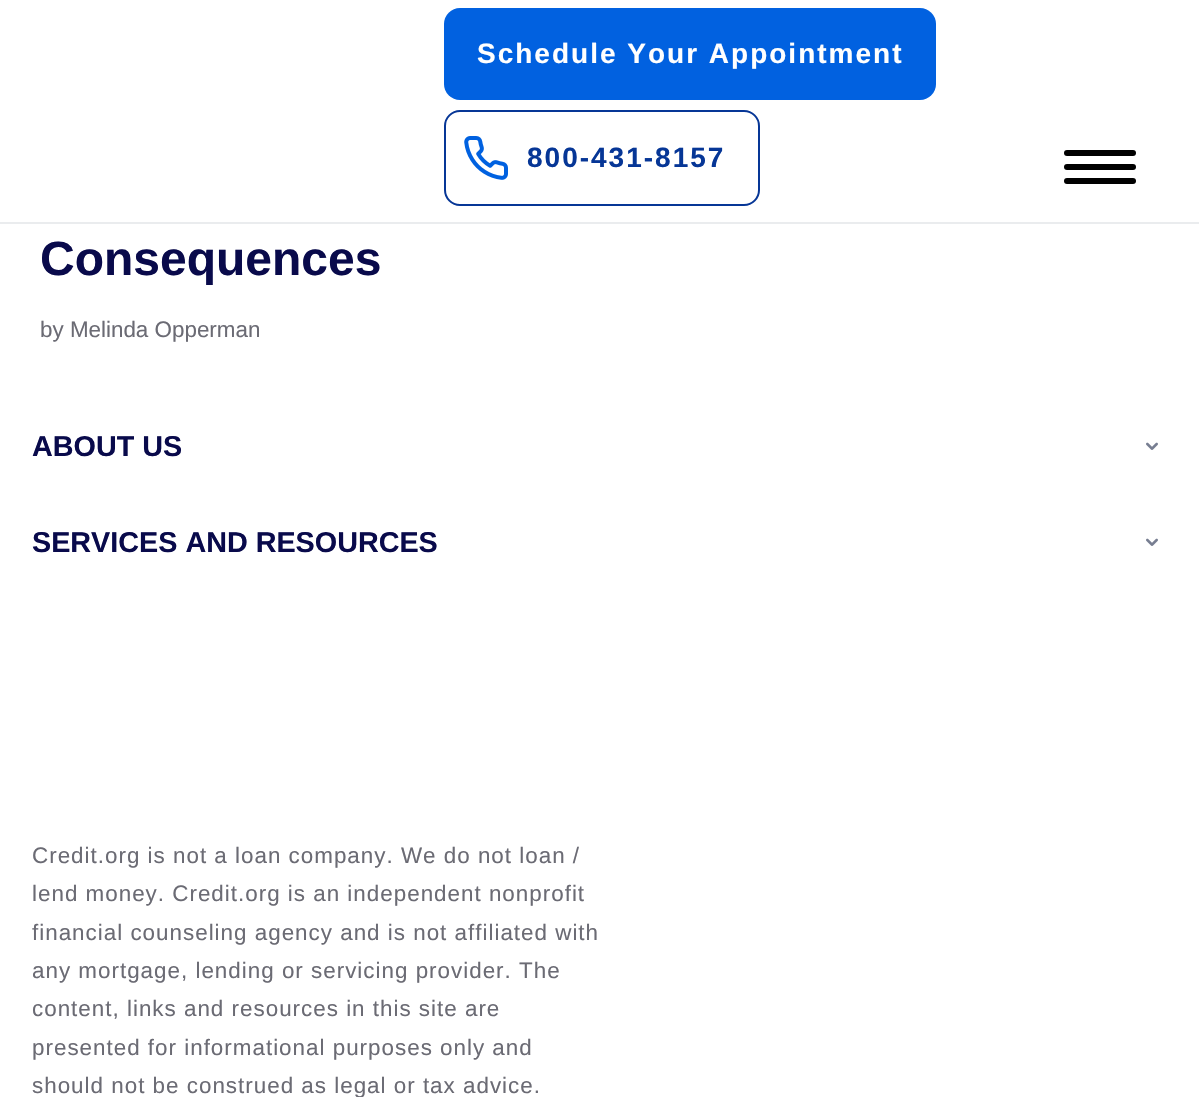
void draw(SkCanvas* canvas) {
	SkPaint fill;
	fill.setAntiAlias(true);
	auto makeFont = [&](const char* family, int weight, float size, bool italic = false) {
		SkFontStyle style(weight, SkFontStyle::kNormal_Width,
			italic ? SkFontStyle::kItalic_Slant : SkFontStyle::kUpright_Slant);
		SkFont result(fontMgr->matchFamilyStyle(family, style), size);
		result.setSubpixel(true);
		return result;
	};
	auto text = [&](const char* s, float x, float y, const SkFont& font) {
		canvas->drawString(s, x, y, font, fill);
	};
	auto spacedText = [&](const char* s, float x, float y, const SkFont& font, const SkPaint& ink, float letter, float word) {
		std::vector<SkGlyphID> glyphs(font.countText(s, strlen(s), SkTextEncoding::kUTF8));
		std::vector<float> xs(glyphs.size());
		font.textToGlyphs(s, strlen(s), SkTextEncoding::kUTF8, glyphs);
		font.getXPos(glyphs, xs, x);
		float extra = 0;
		for (size_t i = 0; i < glyphs.size(); i++) {
			xs[i] += extra;
			extra += letter + word * (glyphs[i] == font.unicharToGlyph(' '));
		}
		canvas->drawTextBlob(SkTextBlob::MakeFromPosHGlyphs(glyphs, xs, y, font), 0, 0, ink);
	};
	auto box = [&](float l, float t, float r, float b) {
		canvas->drawRect(SkRect::MakeLTRB(l, t, r, b), fill);
	};
	auto roundBox = [&](float l, float t, float r, float b, float radius) {
		canvas->drawRoundRect(SkRect::MakeLTRB(l, t, r, b), radius, radius, fill);
	};
	auto picture = [&](const char* path, float l, float t, float r, float b) {
		auto image = SkImages::DeferredFromEncodedData(SkData::MakeFromFileName(path));
		canvas->drawImageRect(image, SkRect::MakeLTRB(l, t, r, b), SkSamplingOptions());
	};
	canvas->clear(0xFFFFFFFF);
	fill.setColor(0xFFEAECEE);
	box(0, 222, 1199, 224);
	fill.setColor(0xFF0161E0);
	roundBox(444, 8, 936, 100, 16);
	picture("image0.png", 464, 136, 508, 180);
	fill.setStyle(SkPaint::kStroke_Style);
	fill.setStrokeWidth(2);
	fill.setColor(0xFF063696);
	canvas->drawRoundRect(SkRect::MakeLTRB(445, 111, 759, 205), 15, 15, fill);
	fill.setStyle(SkPaint::kFill_Style);
	fill.setColor(0xFF000000);
	roundBox(1064, 150, 1136, 156, 3);
	roundBox(1064, 164, 1136, 170, 3);
	roundBox(1064, 178, 1136, 184, 3);
	picture("image1.png", 1146, 442, 1158, 450);
	picture("image1.png", 1146, 538, 1158, 546);
	auto font1 = makeFont("Liberation Sans", 700, 28);
	fill.setColor(0xFFFFFFFF);
	spacedText("Schedule Your Appointment", 477, 63, font1, fill, 2, 0);
	fill.setColor(0xFF063696);
	spacedText("800-431-8157", 527, 167, font1, fill, 2, 0);
	auto font2 = makeFont("Liberation Sans", 700, 48);
	fill.setColor(0xFF090A4B);
	text("Consequences", 40, 275, font2);
	auto font3 = makeFont("Liberation Sans", 400, 22.4f);
	fill.setColor(0xFF6B6B74);
	text("by Melinda Opperman", 40, 337, font3);
	auto font4 = makeFont("Liberation Sans", 700, 28.75f);
	fill.setColor(0xFF090A4B);
	text("ABOUT US", 32, 456, font4);
	text("SERVICES AND RESOURCES", 32, 552, font4);
	fill.setColor(0xFF6B6B74);
	spacedText("Credit.org is not a loan company. We do not loan /", 32, 863, font3, fill, 1, 0);
	spacedText("lend money. Credit.org is an independent nonprofit", 32, 901, font3, fill, 1, 0);
	spacedText("financial counseling agency and is not affiliated with", 32, 940, font3, fill, 1, 0);
	spacedText("any mortgage, lending or servicing provider. The", 32, 978, font3, fill, 1, 0);
	spacedText("content, links and resources in this site are", 32, 1016, font3, fill, 1, 0);
	spacedText("presented for informational purposes only and", 32, 1055, font3, fill, 1, 0);
	spacedText("should not be construed as legal or tax advice.", 32, 1093, font3, fill, 1, 0);
}
